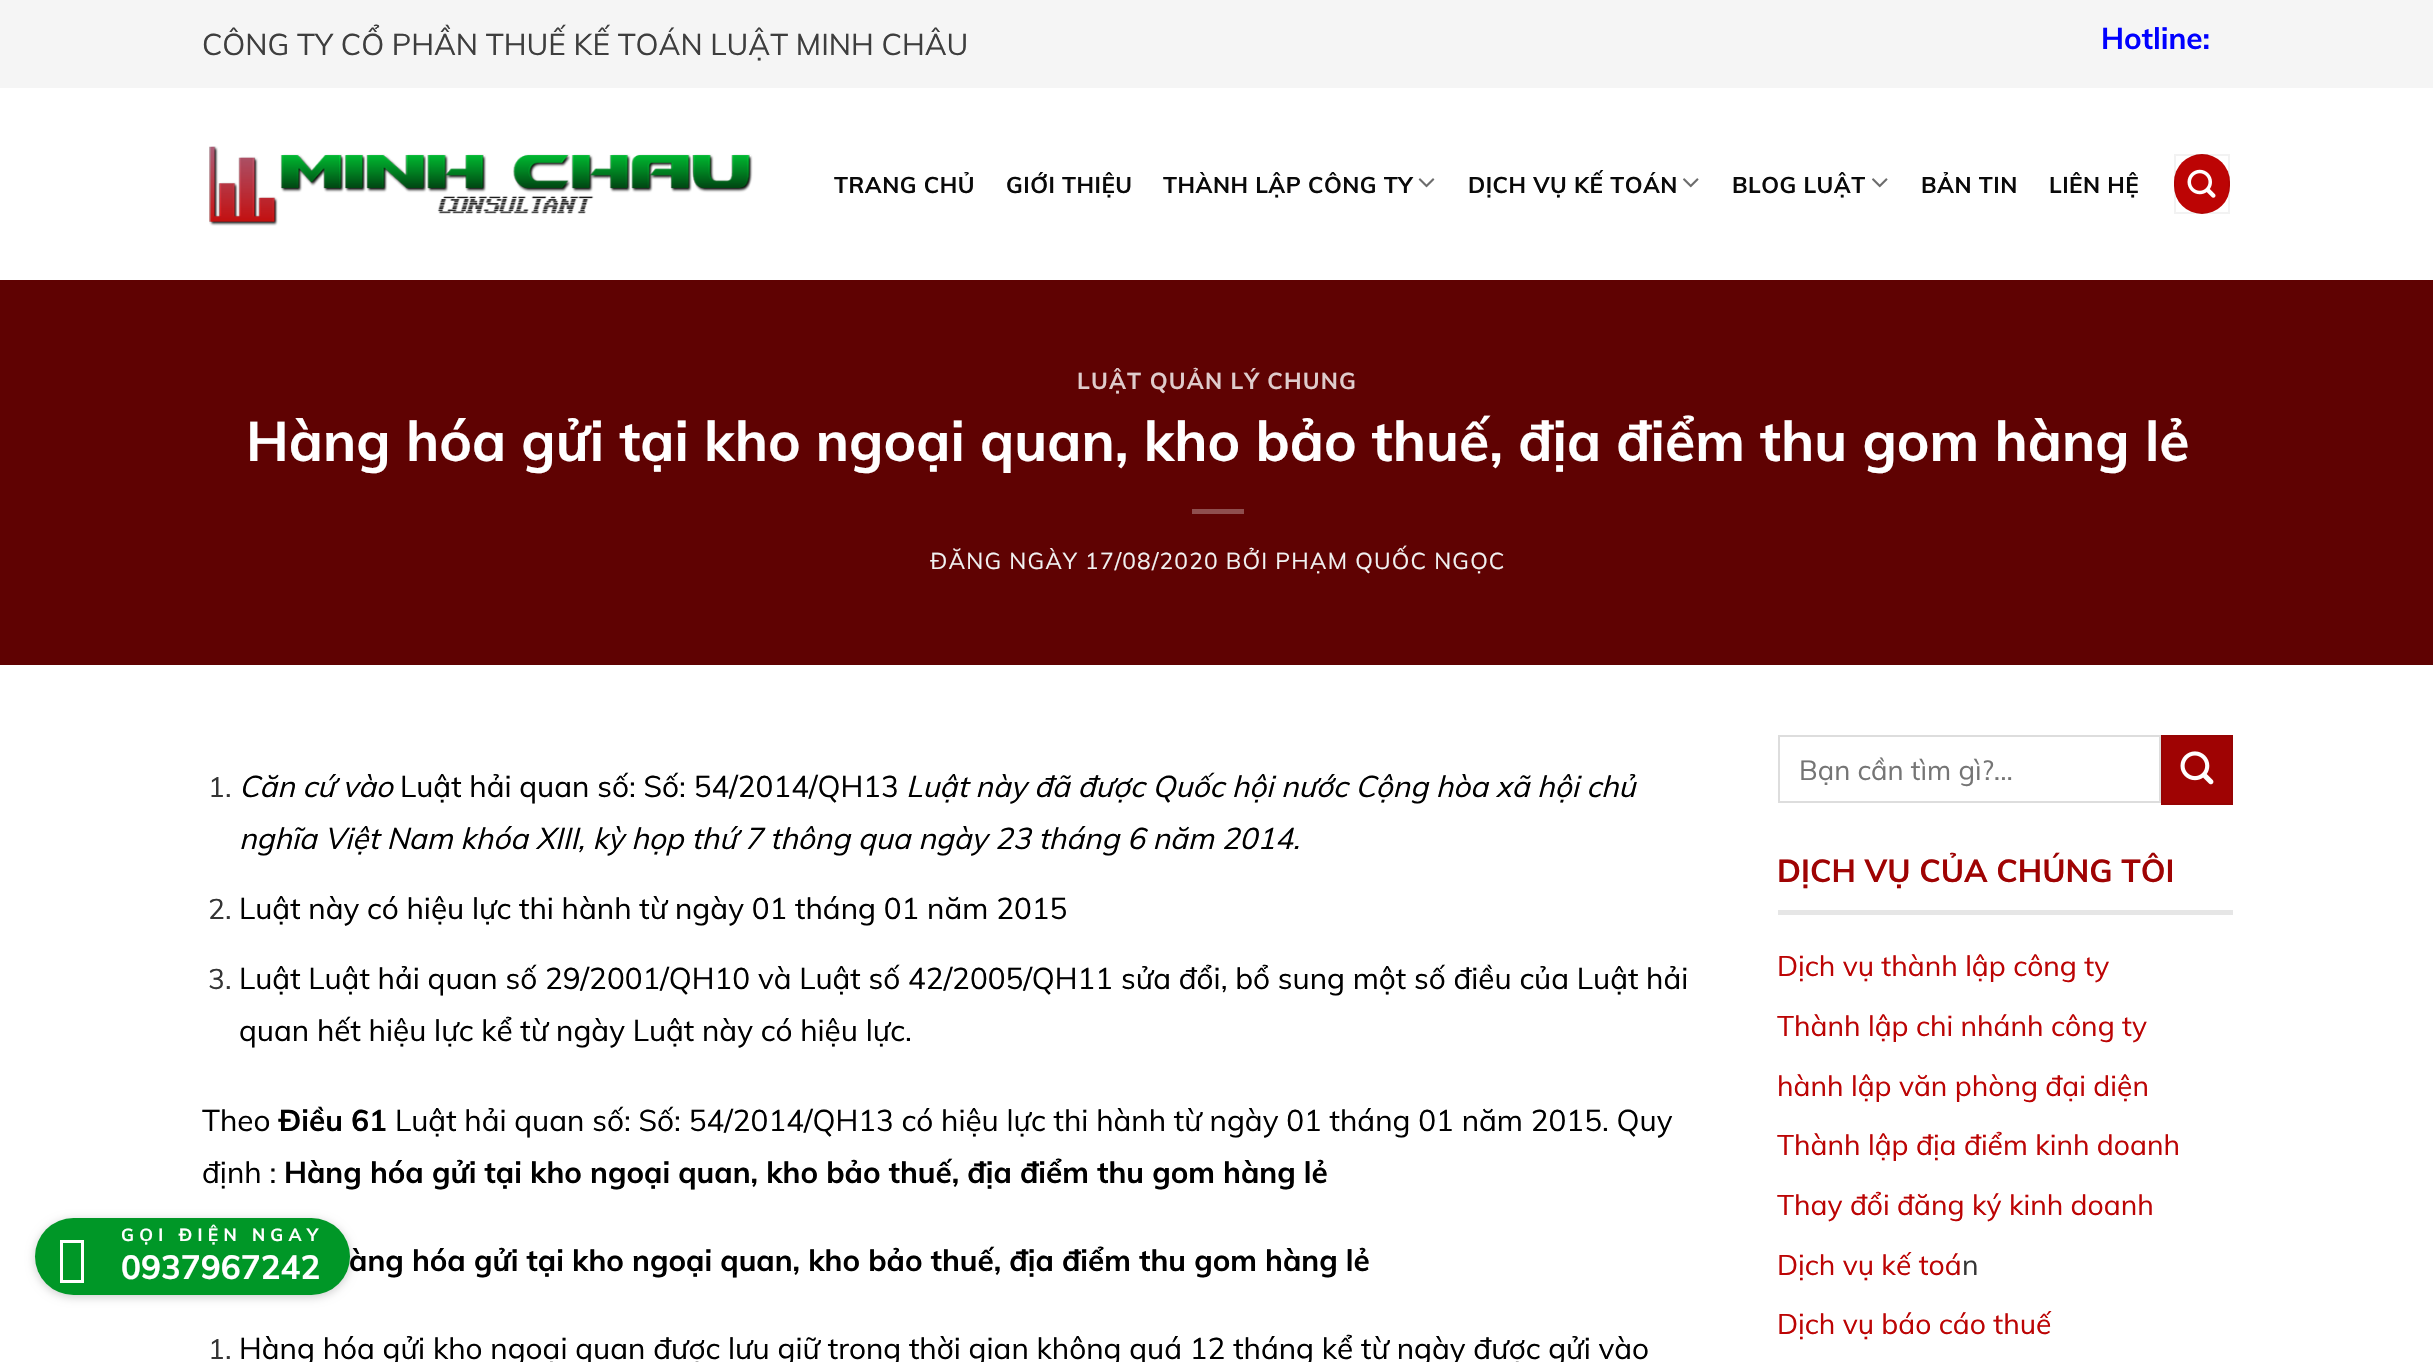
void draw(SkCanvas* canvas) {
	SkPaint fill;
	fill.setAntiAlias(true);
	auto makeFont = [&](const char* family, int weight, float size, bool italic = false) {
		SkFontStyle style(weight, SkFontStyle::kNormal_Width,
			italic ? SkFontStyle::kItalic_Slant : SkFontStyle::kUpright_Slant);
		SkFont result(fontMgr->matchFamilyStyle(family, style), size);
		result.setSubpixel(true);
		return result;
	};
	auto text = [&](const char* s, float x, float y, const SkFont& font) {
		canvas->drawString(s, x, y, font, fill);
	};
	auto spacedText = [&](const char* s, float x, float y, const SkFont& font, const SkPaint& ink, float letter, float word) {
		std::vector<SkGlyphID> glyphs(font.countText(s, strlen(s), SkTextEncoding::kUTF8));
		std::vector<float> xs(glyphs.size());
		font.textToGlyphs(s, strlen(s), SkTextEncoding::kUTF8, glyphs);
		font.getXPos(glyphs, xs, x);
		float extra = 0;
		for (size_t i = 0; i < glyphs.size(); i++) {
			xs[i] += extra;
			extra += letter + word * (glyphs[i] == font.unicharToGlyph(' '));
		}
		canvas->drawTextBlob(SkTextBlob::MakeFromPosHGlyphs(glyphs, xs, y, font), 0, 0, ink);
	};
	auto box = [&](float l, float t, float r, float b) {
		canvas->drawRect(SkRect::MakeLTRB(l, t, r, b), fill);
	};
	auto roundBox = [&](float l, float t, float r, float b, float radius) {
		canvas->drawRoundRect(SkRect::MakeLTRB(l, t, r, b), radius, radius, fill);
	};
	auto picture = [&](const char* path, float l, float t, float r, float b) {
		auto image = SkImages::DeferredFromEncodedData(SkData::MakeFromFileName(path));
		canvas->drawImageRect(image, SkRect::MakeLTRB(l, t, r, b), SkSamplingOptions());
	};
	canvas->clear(0xFFFFFFFF);
	fill.setColor(0xFFF5F5F5);
	box(0, 0, 2433, 88);
	picture("image0.png", 209, 146, 753, 226);
	picture("image1.png", 1418, 178, 1435, 188);
	picture("image2.png", 1683, 178, 1699, 188);
	picture("image2.png", 1872, 178, 1888, 188);
	fill.setColor(0xFFBC0404);
	roundBox(2174, 154, 2230, 214, 28);
	fill.setStyle(SkPaint::kStroke_Style);
	fill.setStrokeWidth(2);
	fill.setColor(0x0D000000);
	canvas->drawRect(SkRect::MakeLTRB(2175, 155, 2229, 213), fill);
	picture("image3.png", 2187, 169, 2216, 198);
	fill.setStyle(SkPaint::kFill_Style);
	fill.setColor(0xFF5F0202);
	box(0, 280, 2433, 665);
	fill.setColor(0xFF8F4E4E);
	box(1192, 509, 1244, 514);
	fill.setStyle(SkPaint::kStroke_Style);
	fill.setColor(0xFFDDDDDD);
	canvas->drawRect(SkRect::MakeLTRB(1779, 736, 2160, 802), fill);
	fill.setStyle(SkPaint::kFill_Style);
	fill.setColor(0xFF9F0303);
	canvas->drawRect(SkRect::MakeLTRB(2162, 736, 2232, 804), fill);
	fill.setStyle(SkPaint::kStroke_Style);
	fill.setColor(0xFF970303);
	canvas->drawRect(SkRect::MakeLTRB(2162, 736, 2232, 804), fill);
	picture("image4.png", 2180, 751, 2214, 785);
	fill.setStyle(SkPaint::kFill_Style);
	fill.setColor(0xFFE6E6E6);
	box(1778, 910, 2233, 915);
	fill.setColor(0x33000000);
	fill.setMaskFilter(SkMaskFilter::MakeBlur(kNormal_SkBlurStyle, 5));
	canvas->drawRoundRect(SkRect::MakeLTRB(35, 1220, 350, 1297), 38.5f, 38.5f, fill);
	fill.setMaskFilter(nullptr);
	fill.setColor(0xFF009727);
	roundBox(35, 1218, 350, 1295, 38.5f);
	fill.setColor(0xFFFFFFFF);
	canvas->drawPath(SkPathBuilder().moveTo(60, 1283).lineTo(60, 1240).lineTo(84, 1240).lineTo(84, 1283).close().moveTo(63, 1280).lineTo(81, 1280).lineTo(81, 1243).lineTo(63, 1243).close().detach(), fill);
	auto font1 = makeFont("Muli", 400, 29.75f);
	fill.setColor(0xFF3E3E3E);
	text("CÔNG TY CỔ PHẦN THUẾ KẾ TOÁN LUẬT MINH CHÂU", 202, 55, font1);
	auto font2 = makeFont("Muli", 700, 29.75f);
	fill.setColor(0xFF0000FF);
	text("Hotline:", 2101, 49, font2);
	auto font3 = makeFont("Muli", 700, 22.6f);
	fill.setColor(0xFF0A0A0A);
	spacedText("TRANG CHỦ", 834, 193, font3, fill, 0.5f, 0);
	spacedText("GIỚI THIỆU", 1006, 193, font3, fill, 0.5f, 0);
	spacedText("THÀNH LẬP CÔNG TY", 1163, 193, font3, fill, 0.5f, 0);
	spacedText("DỊCH VỤ KẾ TOÁN", 1468, 193, font3, fill, 0.5f, 0);
	spacedText("BLOG LUẬT", 1732, 193, font3, fill, 0.5f, 0);
	spacedText("BẢN TIN", 1921, 193, font3, fill, 0.5f, 0);
	spacedText("LIÊN HỆ", 2049, 193, font3, fill, 0.5f, 0);
	auto font4 = makeFont("Muli", 700, 22.75f);
	fill.setColor(0xFFDFCCCC);
	spacedText("LUẬT QUẢN LÝ CHUNG", 1077, 389, font4, fill, 1.15f, 0);
	auto font5 = makeFont("Muli", 700, 55.3f);
	fill.setColor(0xFFFFFFFF);
	text("Hàng hóa gửi tại kho ngoại quan, kho bảo thuế, địa điểm thu gom hàng lẻ", 246, 461, font5);
	auto font6 = makeFont("Muli", 400, 22.75f);
	fill.setColor(0xFFF1F1F1);
	spacedText("ĐĂNG NGÀY 17/08/2020 BỞI PHẠM QUỐC NGỌC", 930, 569, font6, fill, 1.15f, 0);
	auto font7 = makeFont("Muli", 400, 28.25f);
	fill.setColor(0xFF353535);
	text("1.", 208, 797, font7);
	auto font8 = makeFont("Muli", 400, 29.7f, true);
	fill.setColor(0xFF000000);
	text("Căn cứ vào", 239, 797, font8);
	auto font9 = makeFont("Muli", 400, 29.7f);
	text("Luật hải quan số: Số: 54/2014/QH13", 400, 797, font9);
	text("Luật này đã được Quốc hội nước Cộng hòa xã hội chủ", 906, 797, font8);
	text("nghĩa Việt Nam khóa XIII, kỳ họp thứ 7 thông qua ngày 23 tháng 6 năm 2014.", 239, 849, font8);
	fill.setColor(0xFF353535);
	text("2.", 208, 919, font7);
	fill.setColor(0xFF000000);
	text("Luật này có hiệu lực thi hành từ ngày 01 tháng 01 năm 2015", 239, 919, font9);
	fill.setColor(0xFF353535);
	text("3.", 208, 989, font7);
	fill.setColor(0xFF000000);
	text("Luật Luật hải quan số 29/2001/QH10 và Luật số 42/2005/QH11 sửa đổi, bổ sung một số điều của Luật hải", 239, 989, font9);
	text("quan hết hiệu lực kể từ ngày Luật này có hiệu lực.", 239, 1041, font9);
	text("Theo", 202, 1131, font9);
	auto font10 = makeFont("Muli", 700, 29.7f);
	text("Điều 61", 278, 1131, font10);
	text("Luật hải quan số: Số: 54/2014/QH13 có hiệu lực thi hành từ ngày 01 tháng 01 năm 2015. Quy", 395, 1131, font9);
	text("định :", 202, 1183, font9);
	text("Hàng hóa gửi tại kho ngoại quan, kho bảo thuế, địa điểm thu gom hàng lẻ", 284, 1183, font10);
	text("àng hóa gửi tại kho ngoại quan, kho bảo thuế, địa điểm thu gom hàng lẻ", 349, 1271, font10);
	fill.setColor(0xFF353535);
	text("1.", 208, 1359, font7);
	fill.setColor(0xFF000000);
	text("Hàng hóa gửi kho ngoại quan được lưu giữ trong thời gian không quá 12 tháng kể từ ngày được gửi vào", 239, 1359, font9);
	auto font11 = makeFont("Muli", 400, 27.5f);
	fill.setColor(0xFF757575);
	text("Bạn cần tìm gì?...", 1799, 780, font11);
	auto font12 = makeFont("Muli", 700, 31.5f);
	fill.setColor(0xFF9F0303);
	text("DỊCH VỤ CỦA CHÚNG TÔI", 1777, 882, font12);
	fill.setColor(0xFFBC0404);
	text("Dịch vụ thành lập công ty", 1777, 976, font7);
	text("Thành lập chi nhánh công ty", 1777, 1036, font7);
	text("hành lập văn phòng đại diện", 1777, 1096, font7);
	text("Thành lập địa điểm kinh doanh", 1777, 1155, font7);
	text("Thay đổi đăng ký kinh doanh", 1777, 1215, font7);
	text("Dịch vụ kế toá", 1777, 1275, font7);
	fill.setColor(0xFF353535);
	text("n", 1962, 1275, font7);
	fill.setColor(0xFFBC0404);
	text("Dịch vụ báo cáo thuế", 1777, 1334, font7);
	auto font13 = makeFont("Muli", 700, 17.5f);
	fill.setColor(0xFFFFFFFF);
	spacedText("GỌI ĐIỆN NGAY", 121, 1241, font13, fill, 5.25f, 0);
	auto font14 = makeFont("Muli", 700, 33.25f);
	text("0937967242", 121, 1279, font14);
}
